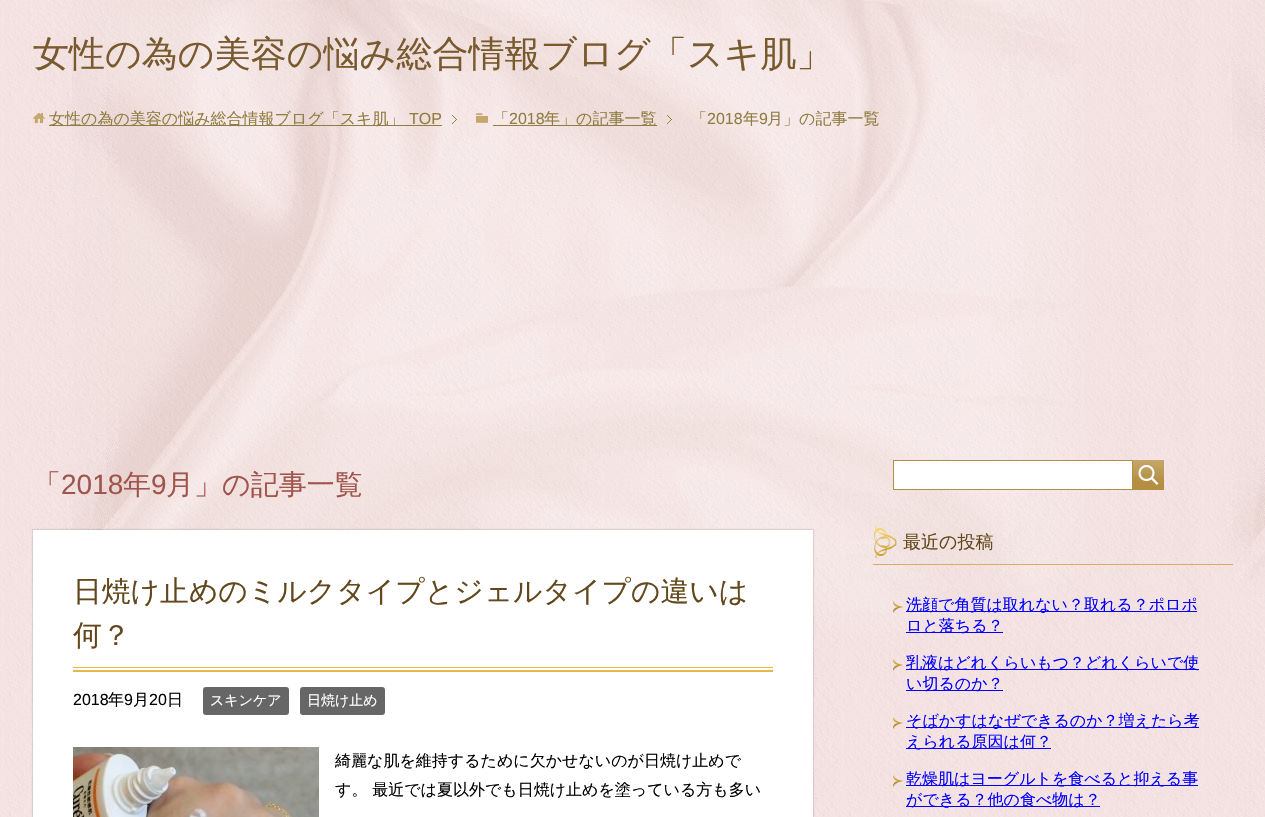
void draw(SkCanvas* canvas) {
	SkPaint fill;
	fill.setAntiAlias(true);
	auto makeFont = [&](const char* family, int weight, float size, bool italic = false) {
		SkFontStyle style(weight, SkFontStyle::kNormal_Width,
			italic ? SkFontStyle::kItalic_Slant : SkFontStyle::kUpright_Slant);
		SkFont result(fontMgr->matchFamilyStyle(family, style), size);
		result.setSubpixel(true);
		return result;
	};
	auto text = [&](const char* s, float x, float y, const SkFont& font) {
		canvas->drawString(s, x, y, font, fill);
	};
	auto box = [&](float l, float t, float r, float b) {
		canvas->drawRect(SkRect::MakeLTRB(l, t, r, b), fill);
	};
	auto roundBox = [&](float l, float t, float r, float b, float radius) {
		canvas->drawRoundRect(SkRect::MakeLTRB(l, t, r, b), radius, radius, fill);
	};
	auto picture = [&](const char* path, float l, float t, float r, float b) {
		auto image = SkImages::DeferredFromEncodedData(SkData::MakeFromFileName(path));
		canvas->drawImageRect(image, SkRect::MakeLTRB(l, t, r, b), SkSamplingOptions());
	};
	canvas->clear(0xFFFFFFFF);
	picture("image0.png", 0, 0, 1265, 817);
	picture("image1.png", 60, 0, 1265, 631);
	picture("image2.png", 452, 115, 457, 124);
	picture("image3.png", 33, 112, 45, 124);
	fill.setColor(0xFF907D43);
	box(49, 125, 442, 126);
	picture("image4.png", 667, 115, 672, 124);
	picture("image5.png", 476, 113, 488, 123);
	box(493, 125, 657, 126);
	fill.setColor(0x1A000000);
	fill.setMaskFilter(SkMaskFilter::MakeBlur(kNormal_SkBlurStyle, 0.5f));
	canvas->drawRect(SkRect::MakeLTRB(32, 529, 814, 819), fill);
	fill.setMaskFilter(nullptr);
	fill.setColor(0xFFFFFFFF);
	box(33, 530, 813, 817);
	picture("image6.png", 73, 667, 773, 672);
	fill.setColor(0xFF666666);
	roundBox(203, 687, 289, 715, 3);
	roundBox(300, 687, 385, 715, 3);
	picture("image7.png", 73, 747, 319, 817);
	fill.setColor(0xFFFFFFFF);
	canvas->drawRect(SkRect::MakeLTRB(893.5f, 460.5f, 1132.5f, 489.5f), fill);
	fill.setStyle(SkPaint::kStroke_Style);
	fill.setStrokeWidth(1);
	fill.setColor(0xFFB48F43);
	canvas->drawRect(SkRect::MakeLTRB(893.5f, 460.5f, 1132.5f, 489.5f), fill);
	fill.setStyle(SkPaint::kFill_Style);
	{
		const SkColor colors[] = {0xFFC4A76B, 0xFFB48F43};
		const float stops[] = {0, 0.75f};
		const SkPoint ends[] = {{1149, 460}, {1149, 490}};
		fill.setShader(SkGradientShader::MakeLinear(ends, colors, stops, 2, SkTileMode::kClamp));
		fill.setAlpha(255);
	}
	box(1133, 460, 1164, 490);
	picture("image8.png", 1138, 465, 1159, 485);
	picture("image9.png", 873, 525, 897, 559);
	fill.setShader(nullptr);
	fill.setColor(0xFFD5AE60);
	box(873, 564, 1233, 565);
	picture("image10.png", 893, 601, 903, 613);
	fill.setColor(0xFF0000FF);
	box(906, 611, 1197, 612);
	box(906, 632, 1003, 633);
	picture("image11.png", 893, 659, 903, 671);
	box(906, 669, 1199, 670);
	box(906, 690, 1003, 691);
	picture("image12.png", 893, 717, 903, 729);
	box(906, 727, 1199, 728);
	box(906, 748, 1051, 749);
	picture("image13.png", 893, 775, 903, 787);
	box(906, 785, 1198, 786);
	box(906, 806, 1100, 807);
	auto font1 = makeFont("WenQuanYi Zen Hei", 500, 36);
	fill.setColor(0xFF795A2E);
	text("女性の為の美容の悩み総合情報ブログ「スキ肌」", 33, 66, font1);
	auto font2 = makeFont("WenQuanYi Zen Hei", 500, 16);
	fill.setColor(0xFF907D43);
	text("女性の為の美容の悩み総合情報ブログ「スキ肌」", 49, 124, font2);
	auto font3 = makeFont("Liberation Sans", 400, 16);
	text("TOP", 409, 124, font3);
	text("「", 493, 124, font2);
	text("2018", 509, 124, font3);
	text("年」の記事一覧", 544, 124, font2);
	text("「", 691, 124, font2);
	text("2018", 707, 124, font3);
	text("年", 743, 124, font2);
	text("9", 759, 124, font3);
	text("月」の記事一覧", 767, 124, font2);
	auto font4 = makeFont("WenQuanYi Zen Hei", 500, 28);
	fill.setColor(0xFFA0544E);
	text("「", 33, 494, font4);
	auto font5 = makeFont("Liberation Sans", 400, 28);
	text("2018", 61, 494, font5);
	text("年", 123, 494, font4);
	text("9", 151, 494, font5);
	text("月」の記事一覧", 166, 494, font4);
	auto font6 = makeFont("WenQuanYi Zen Hei", 500, 28.8f);
	fill.setColor(0xFF62481C);
	text("日焼け止めのミルクタイプとジェルタイプの違いは", 73, 601, font6);
	text("何？", 73, 645, font6);
	fill.setColor(0xFF000000);
	text("2018", 73, 705, font3);
	text("年", 108, 705, font2);
	text("9", 124, 705, font3);
	text("月", 133, 705, font2);
	text("20", 149, 705, font3);
	text("日", 167, 705, font2);
	auto font7 = makeFont("WenQuanYi Zen Hei", 500, 14);
	fill.setColor(0xFFFFFFFF);
	text("スキンケア", 210, 705, font7);
	text("日焼け止め", 307, 705, font7);
	fill.setColor(0xFF000000);
	text("綺麗な肌を維持するために欠かせないのが日焼け止めで", 335, 766, font2);
	text("す。 最近では夏以外でも日焼け止めを塗っている方も多い", 335, 795, font2);
	auto font8 = makeFont("WenQuanYi Zen Hei", 500, 18);
	fill.setColor(0xFF62481C);
	text("最近の投稿", 903, 548, font8);
	fill.setColor(0xFF0000FF);
	text("洗顔で角質は取れない？取れる？ポロポ", 906, 610, font2);
	text("ロと落ちる？", 906, 631, font2);
	text("乳液はどれくらいもつ？どれくらいで使", 906, 668, font2);
	text("い切るのか？", 906, 689, font2);
	text("そばかすはなぜできるのか？増えたら考", 906, 726, font2);
	text("えられる原因は何？", 906, 747, font2);
	text("乾燥肌はヨーグルトを食べると抑える事", 906, 784, font2);
	text("ができる？他の食べ物は？", 906, 805, font2);
}
